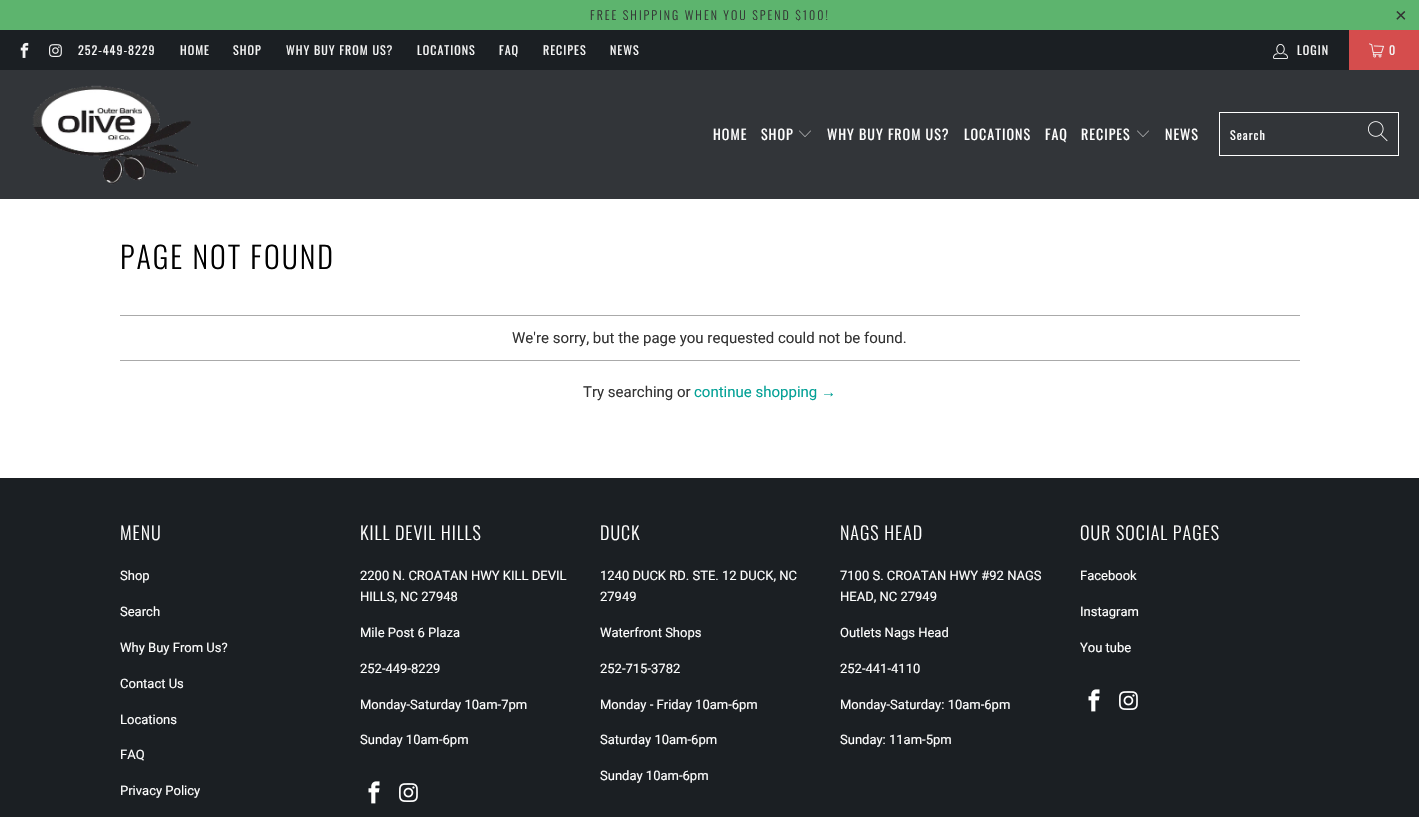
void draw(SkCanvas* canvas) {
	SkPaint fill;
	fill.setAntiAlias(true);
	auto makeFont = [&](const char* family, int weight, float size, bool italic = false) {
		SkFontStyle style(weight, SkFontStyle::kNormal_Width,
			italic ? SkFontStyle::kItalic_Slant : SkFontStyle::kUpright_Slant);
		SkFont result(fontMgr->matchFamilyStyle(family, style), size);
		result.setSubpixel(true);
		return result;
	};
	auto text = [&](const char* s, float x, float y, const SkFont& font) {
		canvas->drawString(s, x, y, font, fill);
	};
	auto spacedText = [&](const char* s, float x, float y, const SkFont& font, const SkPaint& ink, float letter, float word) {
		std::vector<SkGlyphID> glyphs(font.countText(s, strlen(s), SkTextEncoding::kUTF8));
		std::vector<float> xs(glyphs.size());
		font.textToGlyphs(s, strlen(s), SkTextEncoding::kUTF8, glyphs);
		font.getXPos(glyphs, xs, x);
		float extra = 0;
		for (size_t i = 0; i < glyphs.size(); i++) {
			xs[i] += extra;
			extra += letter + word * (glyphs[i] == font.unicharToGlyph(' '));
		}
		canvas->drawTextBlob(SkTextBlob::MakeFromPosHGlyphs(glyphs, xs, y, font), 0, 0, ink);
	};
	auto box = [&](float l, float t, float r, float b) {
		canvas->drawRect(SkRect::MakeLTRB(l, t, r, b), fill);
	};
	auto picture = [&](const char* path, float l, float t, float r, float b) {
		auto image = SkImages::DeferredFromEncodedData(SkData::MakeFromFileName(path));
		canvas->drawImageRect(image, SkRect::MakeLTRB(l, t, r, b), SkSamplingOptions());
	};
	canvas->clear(0xFFFFFFFF);
	fill.setColor(0xFF5DB46E);
	box(0, 0, 1419, 30);
	fill.setColor(0xFF1B1F23);
	box(0, 30, 1349, 70);
	picture("image0.png", 20, 42, 29, 58);
	picture("image1.png", 49, 44, 62, 57);
	picture("image2.png", 1273, 43, 1288, 59);
	fill.setColor(0xFFD54D4D);
	box(1349, 30, 1419, 70);
	picture("image3.png", 1369, 43, 1384, 58);
	fill.setColor(0xFF323539);
	box(0, 70, 1419, 199);
	picture("image4.png", 32, 85, 198, 185);
	picture("image5.png", 799, 130, 811, 137);
	picture("image5.png", 1137, 130, 1149, 137);
	fill.setStyle(SkPaint::kStroke_Style);
	fill.setStrokeWidth(1);
	fill.setColor(0xFFFFFFFF);
	canvas->drawRect(SkRect::MakeLTRB(1219.5f, 112.5f, 1398.5f, 155.5f), fill);
	picture("image6.png", 1368, 121, 1388, 142);
	fill.setStyle(SkPaint::kFill_Style);
	fill.setColor(0xFFAAAAAA);
	box(120, 315, 1300, 316);
	box(120, 360, 1300, 361);
	fill.setColor(0xFF1B1F23);
	box(0, 478, 1419, 817);
	picture("image7.png", 368, 781, 380, 804);
	picture("image8.png", 399, 783, 418, 802);
	picture("image7.png", 1088, 689, 1100, 712);
	picture("image8.png", 1119, 691, 1138, 710);
	auto font1 = makeFont("Oswald", 300, 12);
	fill.setColor(0xFF333333);
	spacedText("FREE SHIPPING WHEN YOU SPEND $100!", 590, 20, font1, fill, 2, 0);
	auto font2 = makeFont("Liberation Sans", 400, 20);
	spacedText("×", 1395, 22, font2, fill, 2, 0);
	auto font3 = makeFont("Oswald", 400, 12);
	fill.setColor(0xFFF4F4F4);
	spacedText("252-449-8229", 78, 55, font3, fill, 1, 0);
	spacedText("HOME", 180, 55, font3, fill, 1, 0);
	spacedText("SHOP", 233, 55, font3, fill, 1, 0);
	spacedText("WHY BUY FROM US?", 286, 55, font3, fill, 1, 0);
	spacedText("LOCATIONS", 417, 55, font3, fill, 1, 0);
	spacedText("FAQ", 499, 55, font3, fill, 1, 0);
	spacedText("RECIPES", 543, 55, font3, fill, 1, 0);
	spacedText("NEWS", 610, 55, font3, fill, 1, 0);
	spacedText("LOGIN", 1297, 55, font3, fill, 1, 0);
	spacedText("0", 1389, 55, font3, fill, 1, 0);
	auto font4 = makeFont("Oswald", 400, 14);
	fill.setColor(0xFFFFFFFF);
	spacedText("HOME", 713, 140, font4, fill, 1, 0);
	spacedText("SHOP", 761, 140, font4, fill, 1, 0);
	spacedText("WHY BUY FROM US?", 827, 140, font4, fill, 1, 0);
	spacedText("LOCATIONS", 964, 140, font4, fill, 1, 0);
	spacedText("FAQ", 1045, 140, font4, fill, 1, 0);
	spacedText("RECIPES", 1081, 140, font4, fill, 1, 0);
	spacedText("NEWS", 1165, 140, font4, fill, 1, 0);
	spacedText("Search", 1230, 140, font3, fill, 1, 0);
	auto font5 = makeFont("Oswald", 300, 30);
	fill.setColor(0xFF000000);
	spacedText("PAGE NOT FOUND", 120, 269, font5, fill, 2, 0);
	auto font6 = makeFont("Roboto", 400, 15);
	fill.setColor(0xFF333333);
	text("We're sorry, but the page you requested could not be found.", 512, 343, font6);
	text("Try searching or", 583, 397, font6);
	fill.setColor(0xFF03A196);
	text("continue shopping", 694, 397, font6);
	auto font7 = makeFont("Liberation Sans", 400, 15);
	text("→", 821, 397, font7);
	auto font8 = makeFont("Oswald", 300, 18);
	fill.setColor(0xFFFFFFFF);
	spacedText("MENU", 120, 540, font8, fill, 1, 0);
	auto font9 = makeFont("Roboto", 400, 13);
	text("Shop", 120, 580, font9);
	text("Search", 120, 616, font9);
	text("Why Buy From Us?", 120, 652, font9);
	text("Contact Us", 120, 688, font9);
	text("Locations", 120, 724, font9);
	text("FAQ", 120, 759, font9);
	text("Privacy Policy", 120, 795, font9);
	spacedText("KILL DEVIL HILLS", 360, 540, font8, fill, 1, 0);
	text("2200 N. CROATAN HWY KILL DEVIL", 360, 580, font9);
	text("HILLS, NC 27948", 360, 601, font9);
	text("Mile Post 6 Plaza", 360, 637, font9);
	text("252-449-8229", 360, 673, font9);
	text("Monday-Saturday 10am-7pm", 360, 709, font9);
	text("Sunday 10am-6pm", 360, 744, font9);
	spacedText("DUCK", 600, 540, font8, fill, 1, 0);
	text("1240 DUCK RD. STE. 12 DUCK, NC", 600, 580, font9);
	text("27949", 600, 601, font9);
	text("Waterfront Shops", 600, 637, font9);
	text("252-715-3782", 600, 673, font9);
	text("Monday - Friday 10am-6pm", 600, 709, font9);
	text("Saturday 10am-6pm", 600, 744, font9);
	text("Sunday 10am-6pm", 600, 780, font9);
	spacedText("NAGS HEAD", 840, 540, font8, fill, 1, 0);
	text("7100 S. CROATAN HWY #92 NAGS", 840, 580, font9);
	text("HEAD, NC 27949", 840, 601, font9);
	text("Outlets Nags Head", 840, 637, font9);
	text("252-441-4110", 840, 673, font9);
	text("Monday-Saturday: 10am-6pm", 840, 709, font9);
	text("Sunday: 11am-5pm", 840, 744, font9);
	spacedText("OUR SOCIAL PAGES", 1080, 540, font8, fill, 1, 0);
	text("Facebook", 1080, 580, font9);
	text("Instagram", 1080, 616, font9);
	text("You tube", 1080, 652, font9);
}
